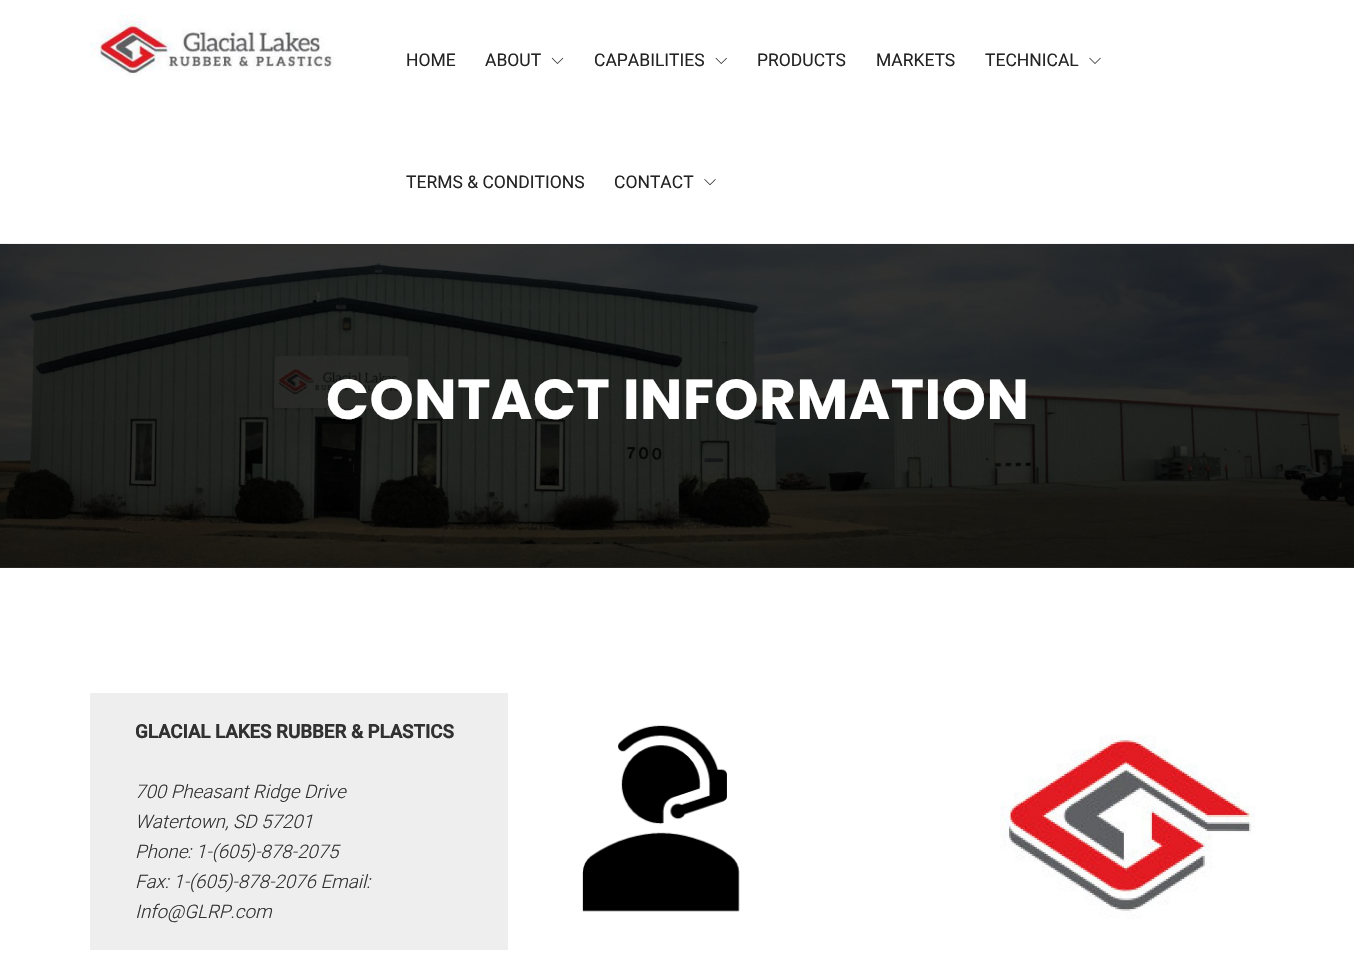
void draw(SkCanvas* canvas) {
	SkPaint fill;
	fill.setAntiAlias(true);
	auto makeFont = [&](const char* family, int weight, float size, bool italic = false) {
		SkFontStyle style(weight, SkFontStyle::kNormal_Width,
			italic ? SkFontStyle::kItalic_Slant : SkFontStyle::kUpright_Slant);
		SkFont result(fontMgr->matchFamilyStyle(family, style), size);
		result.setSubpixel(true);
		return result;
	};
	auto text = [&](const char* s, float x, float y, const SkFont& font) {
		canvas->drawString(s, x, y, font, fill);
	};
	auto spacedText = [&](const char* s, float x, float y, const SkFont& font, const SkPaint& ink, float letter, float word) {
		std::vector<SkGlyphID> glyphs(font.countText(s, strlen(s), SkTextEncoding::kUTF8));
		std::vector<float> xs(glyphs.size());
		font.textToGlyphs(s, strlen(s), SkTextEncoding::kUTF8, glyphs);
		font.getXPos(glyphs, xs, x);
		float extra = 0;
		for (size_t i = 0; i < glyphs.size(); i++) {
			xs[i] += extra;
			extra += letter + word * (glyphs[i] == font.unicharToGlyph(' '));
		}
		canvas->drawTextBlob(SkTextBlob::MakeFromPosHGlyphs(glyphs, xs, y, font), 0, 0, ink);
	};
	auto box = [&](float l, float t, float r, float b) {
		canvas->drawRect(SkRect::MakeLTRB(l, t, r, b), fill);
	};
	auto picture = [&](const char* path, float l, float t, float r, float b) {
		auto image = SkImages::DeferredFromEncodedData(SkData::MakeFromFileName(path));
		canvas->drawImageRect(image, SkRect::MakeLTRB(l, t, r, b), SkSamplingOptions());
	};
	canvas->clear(0xFFFFFFFF);
	fill.setColor(0xFF333333);
	box(0, 567, 1354, 568);
	picture("image0.png", 90, 14, 334, 76);
	picture("image1.png", 551, 57, 564, 64);
	picture("image2.png", 715, 57, 727, 64);
	picture("image3.png", 1089, 57, 1101, 64);
	picture("image4.png", 704, 179, 716, 186);
	picture("image5.png", 0, 243, 1354, 568);
	fill.setColor(0xFFEEEEEE);
	box(90, 693, 508, 950);
	picture("image6.png", 582, 725, 740, 912);
	picture("image7.png", 1000, 735, 1255, 919);
	auto font1 = makeFont("Roboto", 400, 17.5f);
	fill.setColor(0xFF242424);
	text("HOME", 406, 66, font1);
	text("ABOUT", 485, 66, font1);
	text("CAPABILITIES", 594, 66, font1);
	text("PRODUCTS", 757, 66, font1);
	text("MARKETS", 876, 66, font1);
	text("TECHNICAL", 985, 66, font1);
	text("TERMS & CONDITIONS", 406, 188, font1);
	text("CONTACT", 614, 188, font1);
	auto font2 = makeFont("Poppins", 700, 56.25f);
	fill.setColor(0xFFFFFFFF);
	spacedText("CONTACT INFORMATION", 326, 419, font2, fill, 0.6f, 0);
	auto font3 = makeFont("Roboto", 700, 18.75f);
	fill.setColor(0xFF313131);
	text("GLACIAL LAKES RUBBER & PLASTICS", 135, 738, font3);
	auto font4 = makeFont("Roboto", 300, 18.75f, true);
	text("700 Pheasant Ridge Drive", 135, 798, font4);
	text("Watertown, SD 57201", 135, 828, font4);
	text("Phone: 1-(605)-878-2075", 135, 858, font4);
	text("Fax: 1-(605)-878-2076 Email:", 135, 888, font4);
	text("Info@GLRP.com", 135, 918, font4);
}
